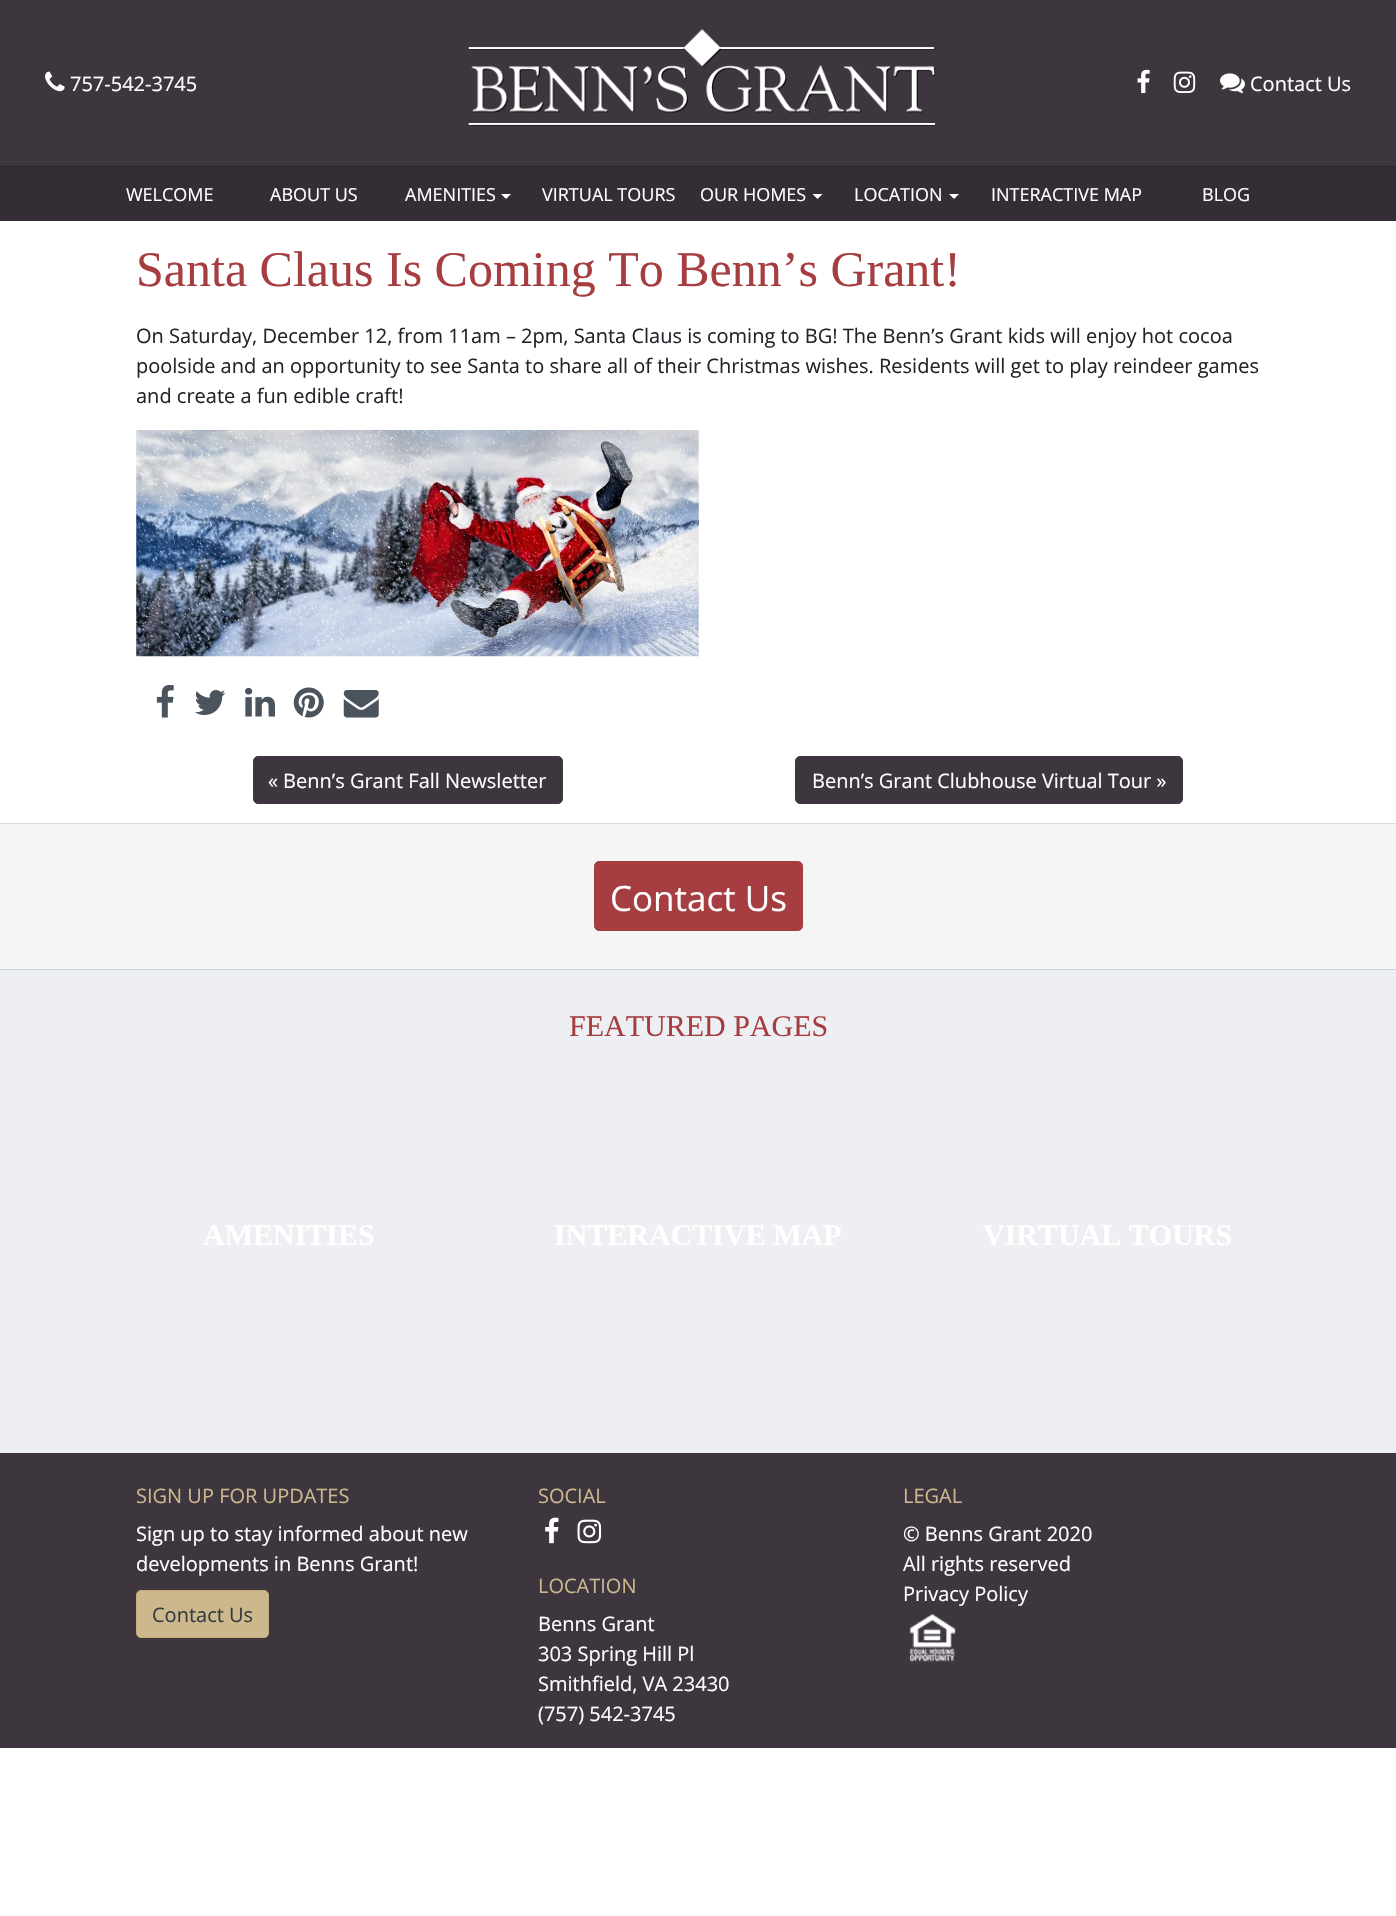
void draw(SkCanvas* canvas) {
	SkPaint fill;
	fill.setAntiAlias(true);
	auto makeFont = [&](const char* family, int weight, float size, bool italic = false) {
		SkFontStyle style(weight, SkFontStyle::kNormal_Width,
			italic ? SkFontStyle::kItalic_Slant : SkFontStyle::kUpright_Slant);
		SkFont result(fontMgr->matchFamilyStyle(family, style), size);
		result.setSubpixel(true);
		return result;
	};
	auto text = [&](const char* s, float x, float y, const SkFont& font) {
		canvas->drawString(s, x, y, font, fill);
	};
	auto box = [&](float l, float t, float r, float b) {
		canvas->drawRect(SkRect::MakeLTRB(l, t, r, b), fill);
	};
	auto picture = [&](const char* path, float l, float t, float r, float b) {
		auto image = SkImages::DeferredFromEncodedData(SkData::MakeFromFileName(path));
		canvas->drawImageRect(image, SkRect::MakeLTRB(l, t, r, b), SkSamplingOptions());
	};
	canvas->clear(0xFFFFFFFF);
	fill.setColor(0xFF3E363F);
	box(0, 0, 1396, 166);
	picture("image0.png", 45, 71, 65, 92);
	picture("image1.png", 468, 28, 935, 126);
	picture("image2.png", 1137, 69, 1150, 94);
	picture("image3.png", 1173, 71, 1196, 93);
	picture("image4.png", 1220, 73, 1245, 93);
	fill.setColor(0xFF342D35);
	box(0, 167, 1396, 221);
	fill.setColor(0xFF2A252B);
	box(0, 166, 1396, 167);
	fill.setColor(0xFFFFFFFF);
	canvas->drawPath(SkPathBuilder().moveTo(501, 194).lineTo(511, 194).lineTo(506, 199).close().detach(), fill);
	canvas->drawPath(SkPathBuilder().moveTo(812.5f, 194).lineTo(822.5f, 194).lineTo(817.5f, 199).close().detach(), fill);
	canvas->drawPath(SkPathBuilder().moveTo(949, 194).lineTo(959, 194).lineTo(954, 199).close().detach(), fill);
	picture("image5.png", 136, 430, 699, 657);
	picture("image6.png", 156, 685, 174, 718);
	picture("image7.png", 194, 690, 226, 715);
	picture("image8.png", 245, 687, 275, 717);
	picture("image9.png", 293, 687, 324, 718);
	picture("image10.png", 343, 690, 379, 718);
	fill.setColor(0xFF3E363F);
	canvas->drawRoundRect(SkRect::MakeLTRB(253.5f, 756.5f, 562.5f, 803.5f), 4.5f, 4.5f, fill);
	fill.setStyle(SkPaint::kStroke_Style);
	fill.setStrokeWidth(1);
	canvas->drawRoundRect(SkRect::MakeLTRB(253.5f, 756.5f, 562.5f, 803.5f), 4.5f, 4.5f, fill);
	fill.setStyle(SkPaint::kFill_Style);
	canvas->drawRoundRect(SkRect::MakeLTRB(795.5f, 756.5f, 1182.5f, 803.5f), 4.5f, 4.5f, fill);
	fill.setStyle(SkPaint::kStroke_Style);
	canvas->drawRoundRect(SkRect::MakeLTRB(795.5f, 756.5f, 1182.5f, 803.5f), 4.5f, 4.5f, fill);
	fill.setStyle(SkPaint::kFill_Style);
	fill.setColor(0xFFF5F5F5);
	box(0, 824, 1396, 969);
	fill.setColor(0xFFDCDCDC);
	box(0, 823, 1396, 824);
	fill.setColor(0xFFA63D40);
	canvas->drawRoundRect(SkRect::MakeLTRB(594.5f, 861.5f, 802.5f, 930.5f), 4.5f, 4.5f, fill);
	fill.setStyle(SkPaint::kStroke_Style);
	canvas->drawRoundRect(SkRect::MakeLTRB(594.5f, 861.5f, 802.5f, 930.5f), 4.5f, 4.5f, fill);
	fill.setStyle(SkPaint::kFill_Style);
	fill.setColor(0xFFEDEFF3);
	box(0, 970, 1396, 1453);
	fill.setColor(0xFFCED4DF);
	box(0, 969, 1396, 970);
	fill.setColor(0xFF3E363F);
	box(0, 1453, 1396, 1748);
	fill.setColor(0xFFCCB88C);
	canvas->drawRoundRect(SkRect::MakeLTRB(136.5f, 1590.5f, 268.5f, 1637.5f), 4.5f, 4.5f, fill);
	fill.setStyle(SkPaint::kStroke_Style);
	fill.setColor(0xFFC4AD7B);
	canvas->drawRoundRect(SkRect::MakeLTRB(136.5f, 1590.5f, 268.5f, 1637.5f), 4.5f, 4.5f, fill);
	picture("image11.png", 545, 1517, 559, 1544);
	picture("image12.png", 577, 1519, 602, 1544);
	picture("image13.png", 909, 1613, 956, 1662);
	auto font1 = makeFont("Open Sans", 400, 20);
	fill.setStyle(SkPaint::kFill_Style);
	fill.setColor(0xFFFFFFFF);
	text("757-542-3745", 70, 91, font1);
	text("Contact Us", 1250, 91, font1);
	auto font2 = makeFont("Open Sans", 400, 18);
	text("WELCOME", 126, 201, font2);
	text("ABOUT US", 270, 201, font2);
	text("AMENITIES", 405, 201, font2);
	text("VIRTUAL TOURS", 542, 201, font2);
	text("OUR HOMES", 700, 201, font2);
	text("LOCATION", 854, 201, font2);
	text("INTERACTIVE MAP", 991, 201, font2);
	text("BLOG", 1202, 201, font2);
	auto font3 = makeFont("Liberation Serif", 400, 50);
	fill.setColor(0xFFA63D40);
	text("Santa Claus Is Coming To Benn’s Grant!", 136, 286, font3);
	fill.setColor(0xFF212529);
	text("On Saturday, December 12, from 11am – 2pm, Santa Claus is coming to BG! The Benn’s Grant kids will enjoy hot cocoa", 136, 343, font1);
	text("poolside and an opportunity to see Santa to share all of their Christmas wishes. Residents will get to play reindeer games", 136, 373, font1);
	text("and create a fun edible craft!", 136, 403, font1);
	fill.setColor(0xFFFFFFFF);
	text("« Benn’s Grant Fall Newsletter", 268, 788, font1);
	text("Benn’s Grant Clubhouse Virtual Tour »", 812, 788, font1);
	auto font4 = makeFont("Open Sans", 400, 35);
	text("Contact Us", 610, 911, font4);
	auto font5 = makeFont("Liberation Serif", 400, 30);
	fill.setColor(0xFFA63D40);
	text("FEATURED PAGES", 569, 1036, font5);
	auto font6 = makeFont("Liberation Serif", 700, 30);
	fill.setColor(0xFFFFFFFF);
	text("AMENITIES", 203, 1245, font6);
	text("INTERACTIVE MAP", 554, 1245, font6);
	text("VIRTUAL TOURS", 983, 1245, font6);
	fill.setColor(0xFFCCB88C);
	text("SIGN UP FOR UPDATES", 136, 1503, font1);
	fill.setColor(0xFFFFFFFF);
	text("Sign up to stay informed about new", 136, 1541, font1);
	text("developments in Benns Grant!", 136, 1571, font1);
	fill.setColor(0xFF343A40);
	text("Contact Us", 152, 1622, font1);
	fill.setColor(0xFFCCB88C);
	text("SOCIAL", 538, 1503, font1);
	text("LOCATION", 538, 1593, font1);
	fill.setColor(0xFFFFFFFF);
	text("Benns Grant", 538, 1631, font1);
	text("303 Spring Hill Pl", 538, 1661, font1);
	text("Smithfield, VA 23430", 538, 1691, font1);
	text("(757) 542-3745", 538, 1721, font1);
	fill.setColor(0xFFCCB88C);
	text("LEGAL", 903, 1503, font1);
	fill.setColor(0xFFFFFFFF);
	text("© Benns Grant 2020", 903, 1541, font1);
	text("All rights reserved", 903, 1571, font1);
	text("Privacy Policy", 903, 1601, font1);
}
